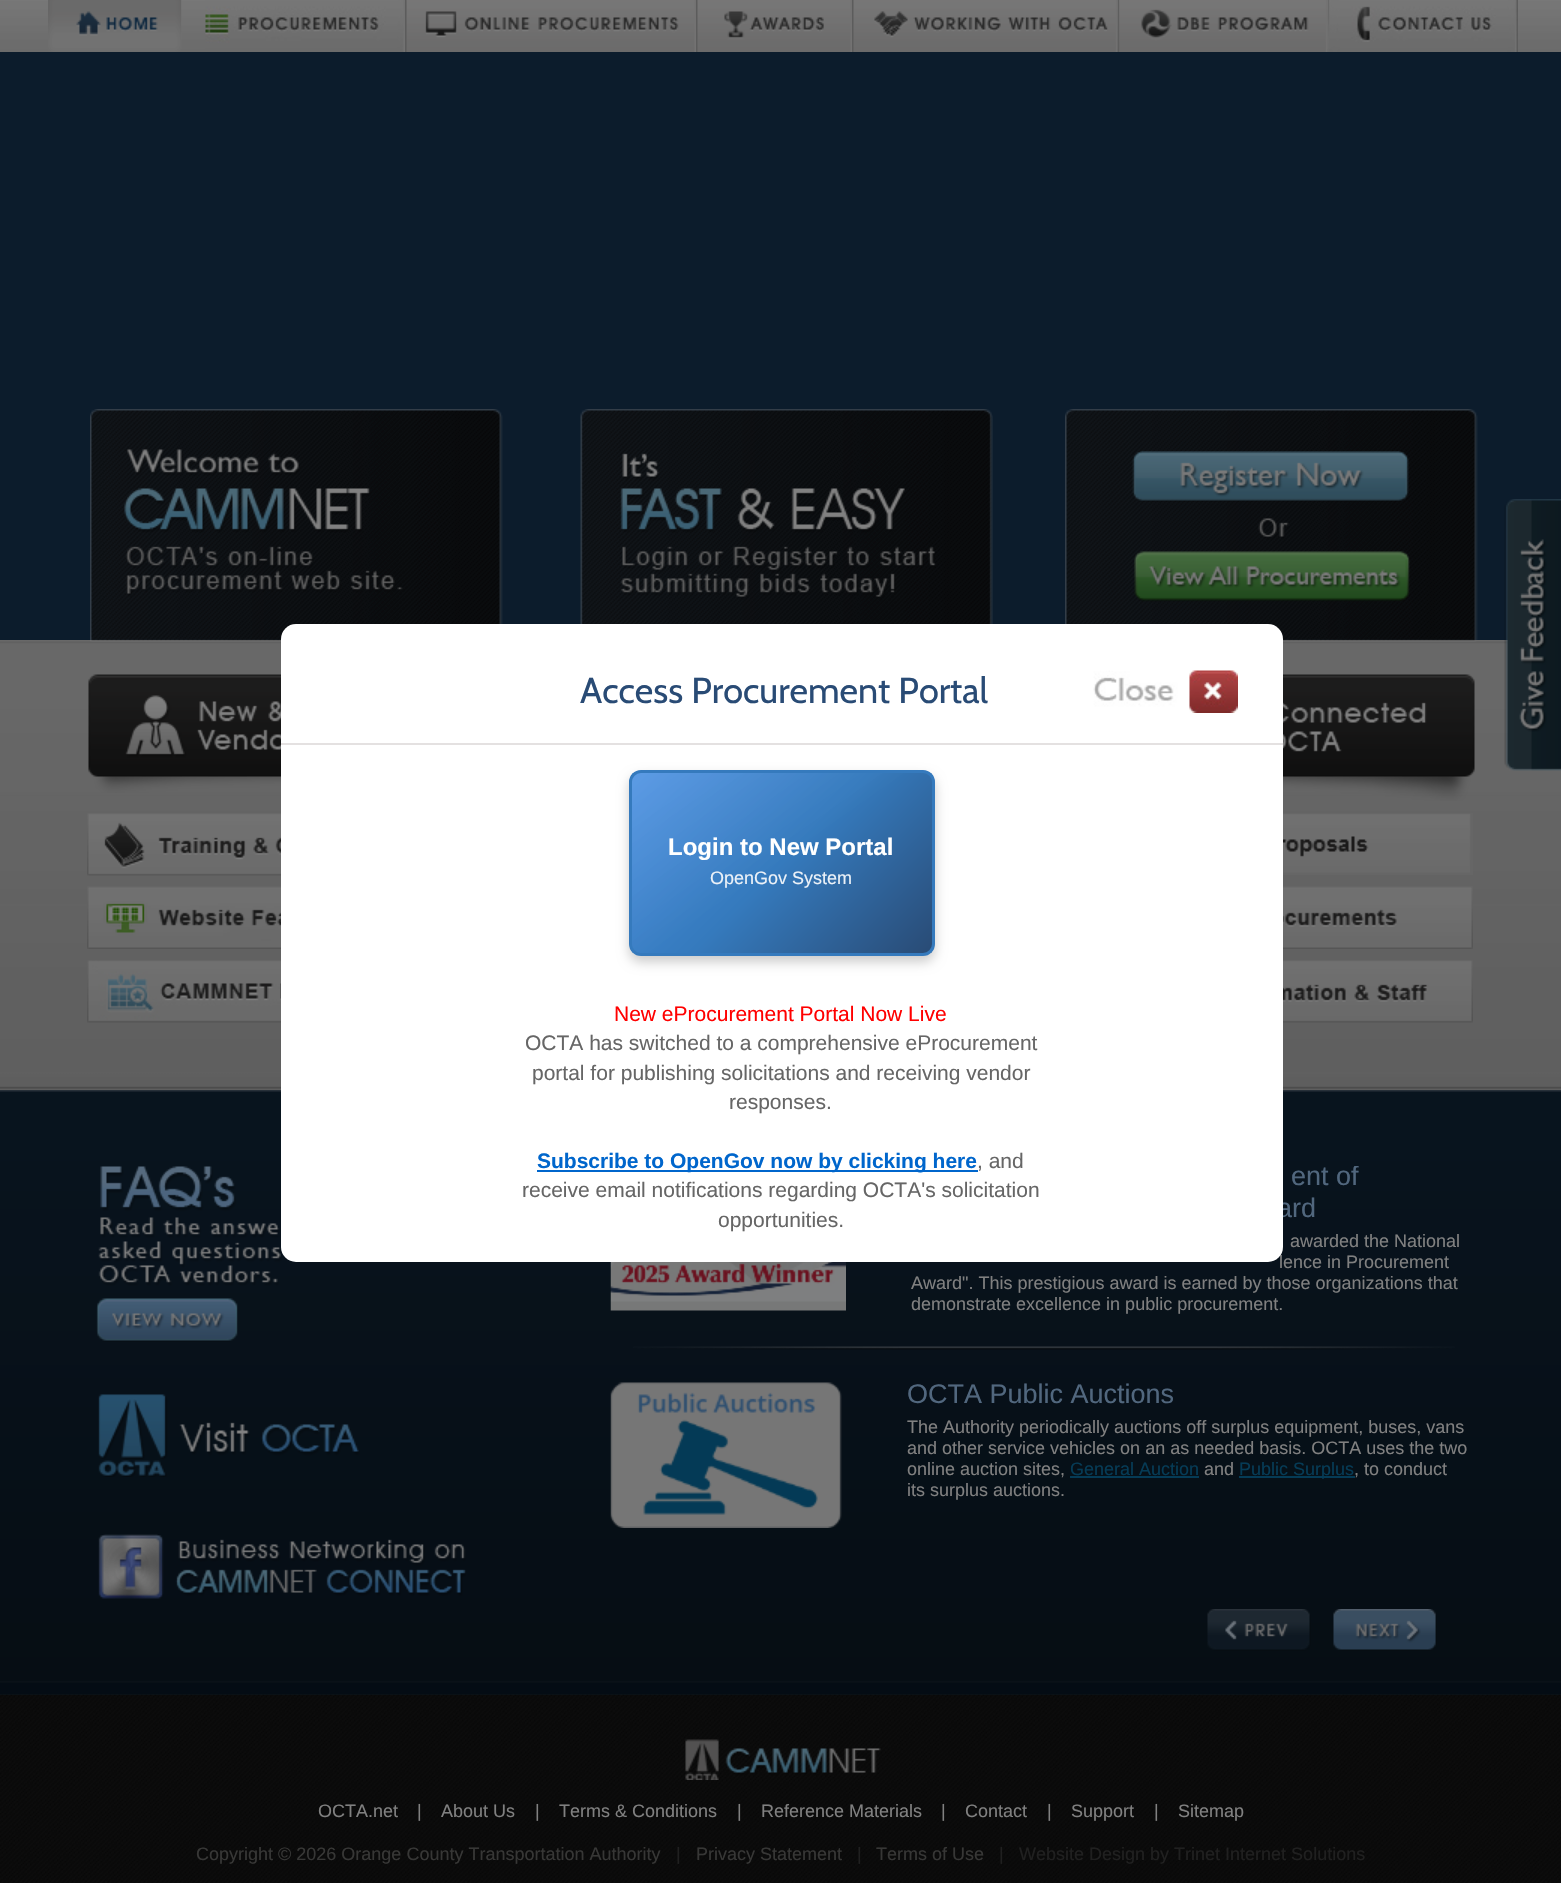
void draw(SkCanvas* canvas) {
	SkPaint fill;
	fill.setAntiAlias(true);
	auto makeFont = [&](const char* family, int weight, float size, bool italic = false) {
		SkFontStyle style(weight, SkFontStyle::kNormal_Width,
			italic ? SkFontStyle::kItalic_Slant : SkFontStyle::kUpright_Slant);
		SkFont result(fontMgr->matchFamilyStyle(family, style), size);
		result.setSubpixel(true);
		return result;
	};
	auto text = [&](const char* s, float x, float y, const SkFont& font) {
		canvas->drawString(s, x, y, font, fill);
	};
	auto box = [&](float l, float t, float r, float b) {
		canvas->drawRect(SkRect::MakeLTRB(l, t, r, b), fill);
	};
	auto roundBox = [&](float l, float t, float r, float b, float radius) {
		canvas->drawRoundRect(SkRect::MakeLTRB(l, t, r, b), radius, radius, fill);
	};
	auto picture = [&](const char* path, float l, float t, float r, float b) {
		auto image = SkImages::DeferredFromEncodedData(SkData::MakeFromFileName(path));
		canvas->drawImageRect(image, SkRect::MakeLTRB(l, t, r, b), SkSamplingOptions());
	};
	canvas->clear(0xFF0C1C2C);
	picture("image0.png", 0, 0, 1561, 52);
	picture("image1.png", 48, 0, 182, 52);
	picture("image2.png", 205, 0, 405, 52);
	picture("image3.png", 405, 0, 696, 52);
	picture("image4.png", 696, 0, 852, 52);
	picture("image5.png", 852, 0, 1118, 52);
	picture("image6.png", 1117, 0, 1328, 52);
	picture("image7.png", 1327, 0, 1518, 52);
	picture("image16.png", 0, 640, 1561, 1090);
	picture("image8.png", 90, 409, 503, 642);
	picture("image9.png", 124, 449, 403, 597);
	picture("image10.png", 580, 409, 993, 624);
	picture("image11.png", 620, 453, 936, 600);
	picture("image12.png", 1065, 409, 1478, 642);
	picture("image13.png", 1132, 451, 1409, 502);
	picture("image14.png", 1258, 518, 1289, 540);
	picture("image15.png", 1134, 551, 1410, 602);
	picture("image17.png", 88, 674, 281, 793);
	picture("image18.png", 87, 813, 281, 876);
	picture("image19.png", 87, 886, 281, 949);
	picture("image20.png", 87, 960, 281, 1023);
	picture("image21.png", 1283, 674, 1475, 801);
	picture("image22.png", 1283, 813, 1473, 875);
	picture("image23.png", 1283, 886, 1473, 949);
	picture("image24.png", 1283, 960, 1473, 1023);
	picture("image25.png", 1504, 499, 1561, 771);
	picture("image27.png", 0, 1090, 1561, 1695);
	picture("image28.png", 98, 1166, 413, 1286);
	picture("image29.png", 96, 1298, 238, 1342);
	picture("image30.png", 98, 1394, 360, 1477);
	picture("image31.png", 98, 1534, 466, 1599);
	picture("image32.png", 610, 1262, 846, 1311);
	picture("image33.png", 633, 1346, 1455, 1350);
	picture("image34.png", 610, 1382, 842, 1528);
	fill.setColor(0xFF053B56);
	box(1070, 1476, 1199, 1478);
	box(1239, 1476, 1355, 1478);
	picture("image35.png", 1207, 1609, 1311, 1651);
	picture("image36.png", 1333, 1609, 1437, 1651);
	picture("image37.png", 0, 1694, 1561, 1883);
	picture("image38.png", 685, 1739, 881, 1780);
	canvas->save();
	canvas->clipRect(SkRect::MakeLTRB(611, 1166, 1496, 1578));
	auto font1 = makeFont("Liberation Sans", 400, 27);
	fill.setColor(0xFF51677E);
	text("ent of", 1291, 1185, font1);
	canvas->restore();
	text("ard", 1277, 1217, font1);
	auto font2 = makeFont("Liberation Sans", 400, 18);
	fill.setColor(0xFF808080);
	text("awarded the National", 1290, 1247, font2);
	text("lence in Procurement", 1279, 1268, font2);
	fill.setColor(0xFFFFFFFF);
	roundBox(281, 624, 1283, 1262, 15);
	fill.setColor(0x33000000);
	fill.setMaskFilter(SkMaskFilter::MakeBlur(kNormal_SkBlurStyle, 6));
	canvas->drawRoundRect(SkRect::MakeLTRB(629, 776, 935, 962), 12, 12, fill);
	fill.setMaskFilter(nullptr);
	canvas->save();
	canvas->clipPath(SkPathBuilder().moveTo(641, 770).lineTo(923, 770).cubicTo(929.5f, 770, 935, 775.5f, 935, 782).lineTo(935, 944).cubicTo(935, 950.5f, 929.5f, 956, 923, 956).lineTo(641, 956).cubicTo(634.5f, 956, 629, 950.5f, 629, 944).lineTo(629, 782).cubicTo(629, 775.5f, 634.5f, 770, 641, 770).close().detach(), true);
	{
		const SkColor colors[] = {0xFF4A90E2, 0xFF357ABD, 0xFF294B75};
		const float stops[] = {0, 0.5f, 1};
		const SkPoint ends[] = {{662, 743}, {902, 983}};
		fill.setShader(SkGradientShader::MakeLinear(ends, colors, stops, 3, SkTileMode::kClamp));
		fill.setAlpha(255);
	}
	box(632, 773, 932, 953);
	canvas->restore();
	fill.setStyle(SkPaint::kStroke_Style);
	fill.setStrokeWidth(3);
	fill.setShader(nullptr);
	fill.setColor(0xFF357ABD);
	canvas->drawRoundRect(SkRect::MakeLTRB(630.5f, 771.5f, 933.5f, 954.5f), 10.5f, 10.5f, fill);
	fill.setStyle(SkPaint::kFill_Style);
	{
		const SkColor colors[] = {0x1AFFFFFF, 0x00FFFFFF};
		const float stops[] = {0, 0.5f};
		const SkPoint ends[] = {{690, 732}, {873, 993}};
		fill.setShader(SkGradientShader::MakeLinear(ends, colors, stops, 2, SkTileMode::kClamp));
		fill.setAlpha(255);
	}
	roundBox(632, 773, 932, 953, 9);
	fill.setShader(nullptr);
	fill.setColor(0xFFEBF1F8);
	text("OpenGov System", 710, 884, font2);
	auto font3 = makeFont("Liberation Sans", 700, 24);
	fill.setColor(0xFFFFFFFF);
	text("Login to New Portal", 668, 855, font3);
	picture("image26.png", 1093, 670, 1238, 713);
	auto font4 = makeFont("Cabin", 400, 36);
	fill.setColor(0xFF294B75);
	text("Access Procurement Portal", 580, 703, font4);
	fill.setColor(0xFFE4E1E1);
	box(281, 743, 1283, 745);
	auto font5 = makeFont("Liberation Sans", 400, 21);
	fill.setColor(0xFF666666);
	text("opportunities.", 718, 1227, font5);
	text("receive email notifications regarding OCTA's solicitation", 522, 1197, font5);
	text(", and", 977, 1168, font5);
	fill.setColor(0xFF0066CC);
	box(537, 1170, 978, 1172);
	auto font6 = makeFont("Liberation Sans", 700, 21);
	text("Subscribe to OpenGov now by clicking here", 537, 1168, font6);
	fill.setColor(0xFF666666);
	text("responses.", 729, 1109, font5);
	text("portal for publishing solicitations and receiving vendor", 532, 1080, font5);
	text("OCTA has switched to a comprehensive eProcurement", 525, 1050, font5);
	fill.setColor(0xFFFF0000);
	text("New eProcurement Portal Now Live", 614, 1021, font5);
	fill.setColor(0xFF808080);
	text("Award\". This prestigious award is earned by those organizations that", 911, 1289, font2);
	text("demonstrate excellence in public procurement.", 911, 1310, font2);
	fill.setColor(0xFF51677E);
	text("OCTA Public Auctions", 907, 1403, font1);
	fill.setColor(0xFF808080);
	text("The Authority periodically auctions off surplus equipment, buses, vans", 907, 1433, font2);
	text("and other service vehicles on an as needed basis. OCTA uses the two", 907, 1454, font2);
	text("online auction sites,", 907, 1475, font2);
	fill.setColor(0xFF053B56);
	text("General Auction", 1070, 1475, font2);
	fill.setColor(0xFF808080);
	text("and", 1204, 1475, font2);
	fill.setColor(0xFF053B56);
	text("Public Surplus", 1239, 1475, font2);
	fill.setColor(0xFF808080);
	text(", to conduct", 1354, 1475, font2);
	text("its surplus auctions.", 907, 1496, font2);
	text("OCTA.net", 318, 1817, font2);
	text("|", 417, 1817, font2);
	text("About Us", 441, 1817, font2);
	text("|", 535, 1817, font2);
	text("Terms & Conditions", 559, 1817, font2);
	text("|", 737, 1817, font2);
	text("Reference Materials", 761, 1817, font2);
	text("|", 941, 1817, font2);
	text("Contact", 965, 1817, font2);
	text("|", 1047, 1817, font2);
	text("Support", 1071, 1817, font2);
	text("|", 1154, 1817, font2);
	text("Sitemap", 1178, 1817, font2);
	fill.setColor(0xFF373736);
	text("Copyright © 2026 Orange County Transportation Authority", 196, 1860, font2);
	fill.setColor(0xFF202020);
	text("|", 676, 1860, font2);
	fill.setColor(0xFF373736);
	text("Privacy Statement", 696, 1860, font2);
	fill.setColor(0xFF202020);
	text("|", 857, 1860, font2);
	fill.setColor(0xFF373736);
	text("Terms of Use", 876, 1860, font2);
	fill.setColor(0xFF202020);
	text("|", 999, 1860, font2);
	text("Website Design by Trinet Internet Solutions", 1019, 1860, font2);
}
